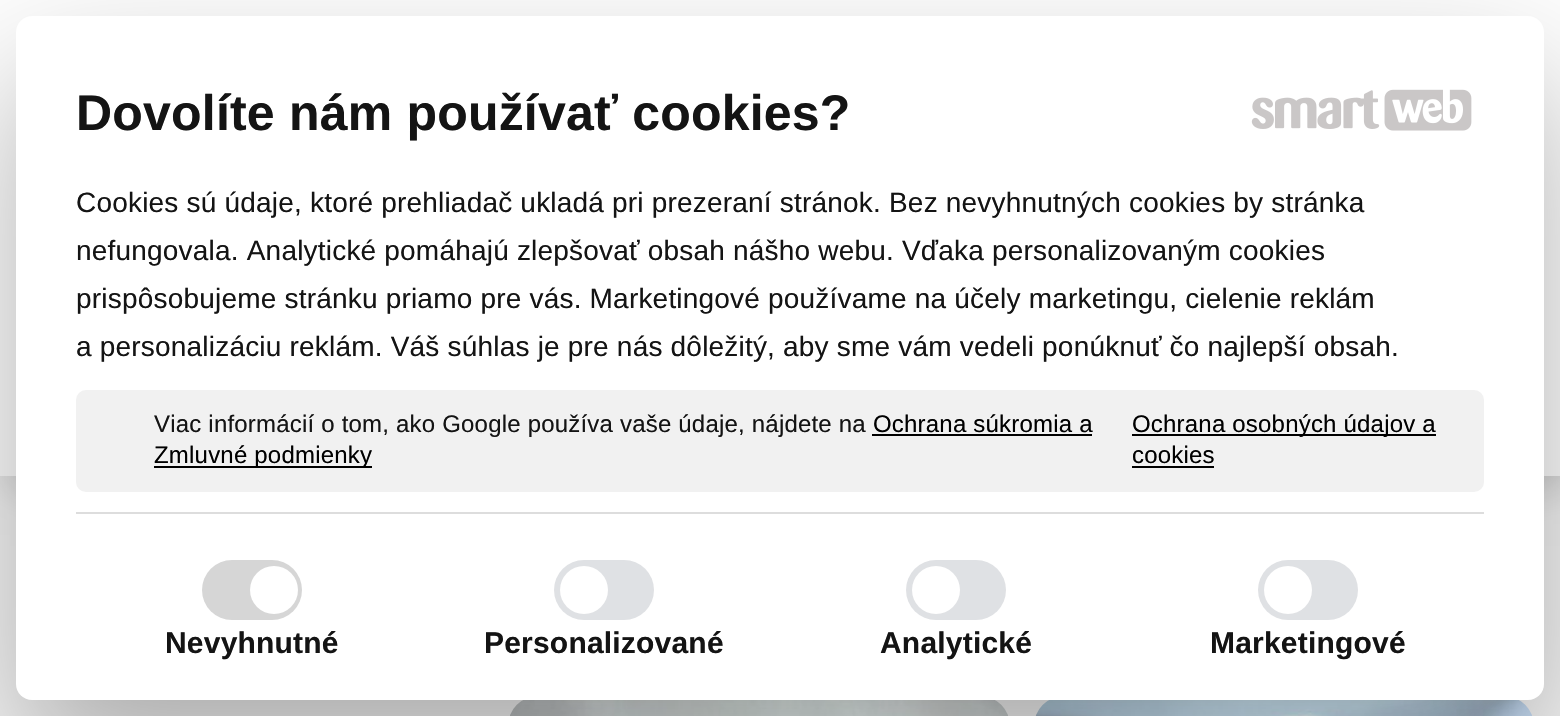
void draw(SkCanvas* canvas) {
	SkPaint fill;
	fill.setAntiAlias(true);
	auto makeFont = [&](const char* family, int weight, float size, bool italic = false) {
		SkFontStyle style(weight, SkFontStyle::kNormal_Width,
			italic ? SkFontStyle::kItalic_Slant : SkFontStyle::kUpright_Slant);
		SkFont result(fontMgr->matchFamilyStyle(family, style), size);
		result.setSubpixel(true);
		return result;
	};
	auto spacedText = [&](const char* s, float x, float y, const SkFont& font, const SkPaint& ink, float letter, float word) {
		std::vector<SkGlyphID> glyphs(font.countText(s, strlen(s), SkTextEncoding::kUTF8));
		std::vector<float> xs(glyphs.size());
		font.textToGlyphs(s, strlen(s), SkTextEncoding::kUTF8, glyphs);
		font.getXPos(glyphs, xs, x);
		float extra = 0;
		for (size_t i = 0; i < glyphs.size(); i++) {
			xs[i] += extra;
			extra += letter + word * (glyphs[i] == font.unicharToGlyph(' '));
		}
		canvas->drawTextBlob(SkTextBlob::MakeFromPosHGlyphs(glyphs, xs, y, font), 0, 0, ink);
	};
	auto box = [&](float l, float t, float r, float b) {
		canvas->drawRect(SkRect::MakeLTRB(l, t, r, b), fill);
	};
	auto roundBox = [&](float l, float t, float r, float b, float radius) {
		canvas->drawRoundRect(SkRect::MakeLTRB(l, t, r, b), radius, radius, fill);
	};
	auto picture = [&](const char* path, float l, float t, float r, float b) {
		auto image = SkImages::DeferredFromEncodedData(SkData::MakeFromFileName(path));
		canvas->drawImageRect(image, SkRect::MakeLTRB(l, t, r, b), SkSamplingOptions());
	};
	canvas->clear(0xFFF6F6F6);
	fill.setColor(0x33000000);
	fill.setMaskFilter(SkMaskFilter::MakeBlur(kNormal_SkBlurStyle, 20));
	canvas->drawRect(SkRect::MakeLTRB(10, 10, 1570, 486), fill);
	fill.setMaskFilter(nullptr);
	fill.setColor(0xFFFEFEFE);
	box(0, 0, 1560, 476);
	picture("image2.png", 510, 700, 1008, 716);
	picture("image3.png", 1035, 700, 1532, 716);
	fill.setColor(0x4D000000);
	fill.setMaskFilter(SkMaskFilter::MakeBlur(kNormal_SkBlurStyle, 68));
	canvas->drawRoundRect(SkRect::MakeLTRB(16, 80, 1544, 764), 16, 16, fill);
	fill.setMaskFilter(nullptr);
	fill.setColor(0xFFFFFFFF);
	roundBox(16, 16, 1544, 700, 16);
	picture("image0.png", 1251, 90, 1380, 129);
	picture("image1.png", 1384, 89, 1472, 131);
	fill.setColor(0xFFF1F1F1);
	roundBox(76, 390, 1484, 492, 10);
	fill.setColor(0xFF000000);
	box(872, 434, 1092, 436);
	box(154, 466, 372, 468);
	box(1132, 434, 1436, 436);
	box(1132, 466, 1214, 468);
	fill.setColor(0xFFDDDDDD);
	box(76, 512, 1484, 514);
	fill.setColor(0xFFD6D6D6);
	roundBox(202, 560, 302, 620, 30);
	fill.setColor(0xFFFFFFFF);
	canvas->drawCircle(274, 590, 24, fill);
	fill.setColor(0xFFDFE1E4);
	roundBox(554, 560, 654, 620, 30);
	fill.setColor(0xFFFFFFFF);
	canvas->drawCircle(584, 590, 24, fill);
	fill.setColor(0xFFDFE1E4);
	roundBox(906, 560, 1006, 620, 30);
	fill.setColor(0xFFFFFFFF);
	canvas->drawCircle(936, 590, 24, fill);
	fill.setColor(0xFFDFE1E4);
	roundBox(1258, 560, 1358, 620, 30);
	fill.setColor(0xFFFFFFFF);
	canvas->drawCircle(1288, 590, 24, fill);
	auto font1 = makeFont("Liberation Sans", 700, 50);
	fill.setColor(0xFF141414);
	spacedText("Dovolíte nám používať cookies?", 76, 130, font1, fill, 0.2f, 0);
	auto font2 = makeFont("Liberation Sans", 400, 28);
	spacedText("Cookies sú údaje, ktoré prehliadač ukladá pri prezeraní stránok. Bez nevyhnutných cookies by stránka", 76, 212, font2, fill, 0.2f, 0);
	spacedText("nefungovala. Analytické pomáhajú zlepšovať obsah nášho webu. Vďaka personalizovaným cookies", 76, 260, font2, fill, 0.2f, 0);
	spacedText("prispôsobujeme stránku priamo pre vás. Marketingové používame na účely marketingu, cielenie reklám", 76, 308, font2, fill, 0.2f, 0);
	spacedText("a personalizáciu reklám. Váš súhlas je pre nás dôležitý, aby sme vám vedeli ponúknuť čo najlepší obsah.", 76, 356, font2, fill, 0.2f, 0);
	auto font3 = makeFont("Liberation Sans", 400, 24);
	spacedText("Viac informácií o tom, ako Google používa vaše údaje, nájdete na", 154, 432, font3, fill, 0.2f, 0);
	fill.setColor(0xFF000000);
	spacedText("Ochrana súkromia a", 873, 432, font3, fill, 0.2f, 0);
	spacedText("Zmluvné podmienky", 154, 463, font3, fill, 0.2f, 0);
	spacedText("Ochrana osobných údajov a", 1132, 432, font3, fill, 0.2f, 0);
	spacedText("cookies", 1132, 463, font3, fill, 0.2f, 0);
	auto font4 = makeFont("Liberation Sans", 700, 30);
	fill.setColor(0xFF141414);
	spacedText("Nevyhnutné", 165, 653, font4, fill, 0.2f, 0);
	spacedText("Personalizované", 484, 653, font4, fill, 0.2f, 0);
	spacedText("Analytické", 880, 653, font4, fill, 0.2f, 0);
	spacedText("Marketingové", 1210, 653, font4, fill, 0.2f, 0);
}
